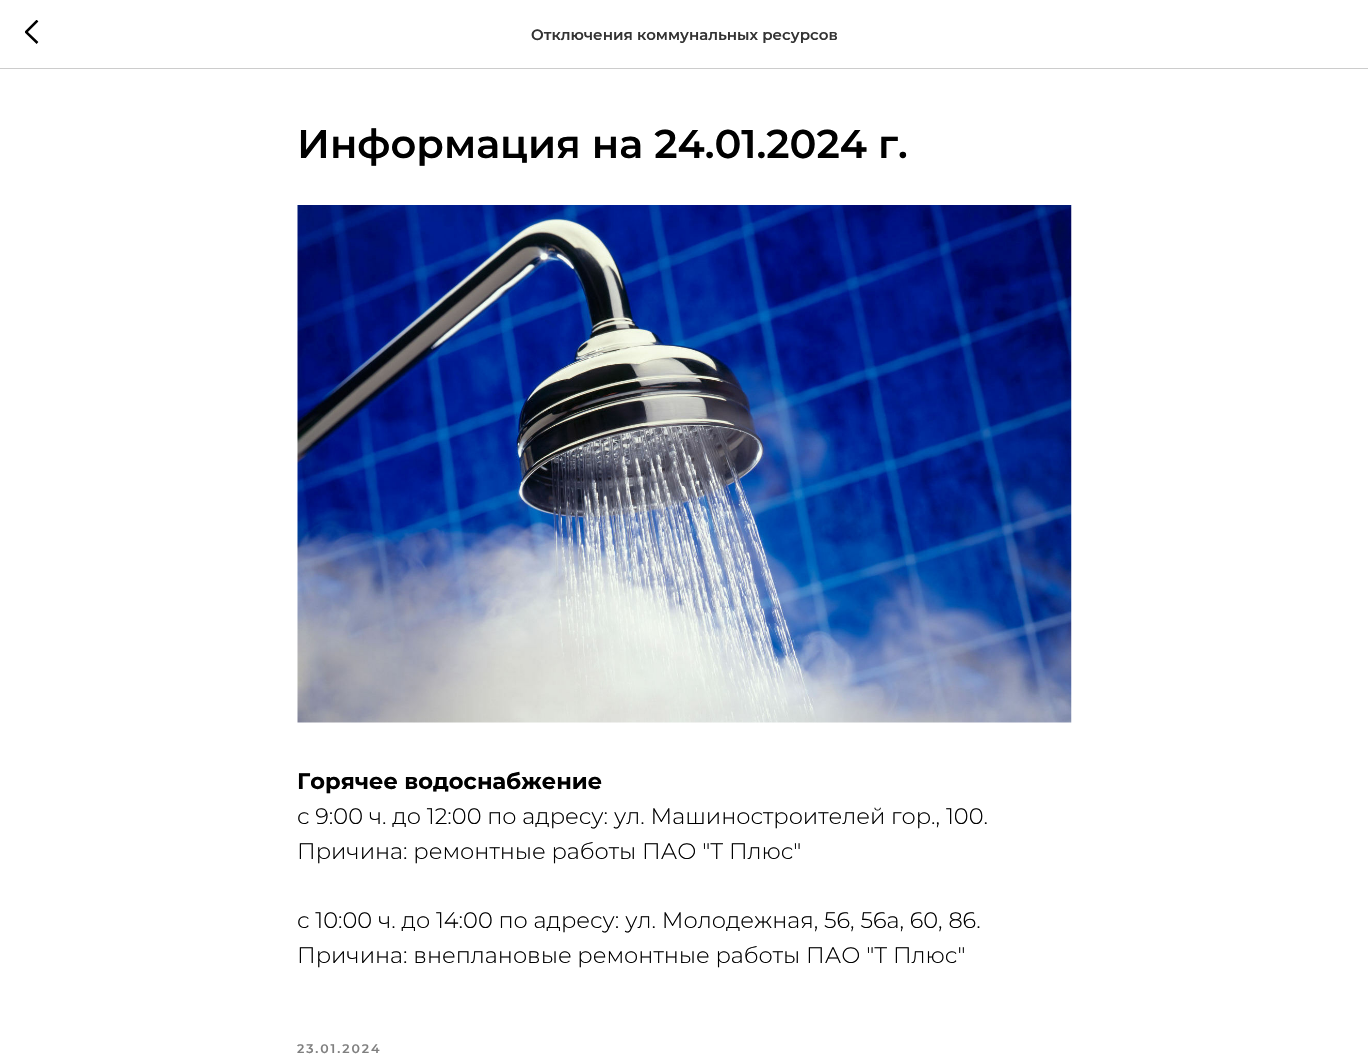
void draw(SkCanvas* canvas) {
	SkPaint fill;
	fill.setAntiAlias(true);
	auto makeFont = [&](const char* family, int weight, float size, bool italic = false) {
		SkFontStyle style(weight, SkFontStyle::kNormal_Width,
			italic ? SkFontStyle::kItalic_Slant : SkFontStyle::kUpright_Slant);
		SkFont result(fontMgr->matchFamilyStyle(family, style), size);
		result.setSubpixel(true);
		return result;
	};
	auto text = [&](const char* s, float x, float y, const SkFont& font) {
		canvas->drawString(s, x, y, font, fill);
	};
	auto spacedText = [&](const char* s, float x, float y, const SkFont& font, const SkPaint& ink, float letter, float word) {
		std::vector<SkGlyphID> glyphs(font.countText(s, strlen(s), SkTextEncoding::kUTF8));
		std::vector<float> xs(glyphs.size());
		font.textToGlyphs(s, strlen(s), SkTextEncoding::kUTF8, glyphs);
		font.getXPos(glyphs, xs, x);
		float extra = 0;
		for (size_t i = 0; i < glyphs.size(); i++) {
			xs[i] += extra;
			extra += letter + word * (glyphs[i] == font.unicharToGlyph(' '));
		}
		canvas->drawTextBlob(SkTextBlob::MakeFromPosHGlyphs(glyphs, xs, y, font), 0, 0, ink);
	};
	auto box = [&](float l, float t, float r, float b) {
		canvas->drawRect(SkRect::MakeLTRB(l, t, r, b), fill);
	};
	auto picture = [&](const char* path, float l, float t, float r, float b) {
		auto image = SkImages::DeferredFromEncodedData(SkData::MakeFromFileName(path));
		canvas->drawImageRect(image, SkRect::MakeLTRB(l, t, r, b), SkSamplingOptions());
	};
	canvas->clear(0xFFFFFFFF);
	fill.setColor(0xFFCCCCCC);
	box(0, 68, 1368, 69);
	canvas->save();
	canvas->clipRect(SkRect::MakeLTRB(25, 20, 39, 45));
	fill.setStyle(SkPaint::kStroke_Style);
	fill.setStrokeWidth(2.5f);
	fill.setColor(0xFF000000);
	canvas->drawPath(SkPathBuilder().moveTo(37.5f, 43).lineTo(26, 32).lineTo(37.5f, 20.5f).detach(), fill);
	canvas->restore();
	picture("image0.png", 297, 205, 1072, 723);
	auto font1 = makeFont("Montserrat", 600, 15);
	fill.setStyle(SkPaint::kFill_Style);
	fill.setColor(0xFF333333);
	text("Отключения коммунальных ресурсов", 531, 40, font1);
	auto font2 = makeFont("Montserrat", 600, 40);
	fill.setColor(0xFF000000);
	text("Информация на 24.01.2024 г.", 297, 158, font2);
	auto font3 = makeFont("Montserrat", 700, 22.5f);
	text("Горячее водоснабжение", 297, 789, font3);
	auto font4 = makeFont("Montserrat", 300, 22.5f);
	text("с 9:00 ч. до 12:00 по адресу: ул. Машиностроителей гор., 100.", 297, 824, font4);
	text("Причина: ремонтные работы ПАО \"Т Плюс\"", 297, 859, font4);
	text("с 10:00 ч. до 14:00 по адресу: ул. Молодежная, 56, 56а, 60, 86.", 297, 928, font4);
	text("Причина: внеплановые ремонтные работы ПАО \"Т Плюс\"", 297, 963, font4);
	auto font5 = makeFont("Montserrat", 600, 12.5f);
	fill.setColor(0xFF808080);
	spacedText("23.01.2024", 297, 1053, font5, fill, 1.9f, 0);
}
